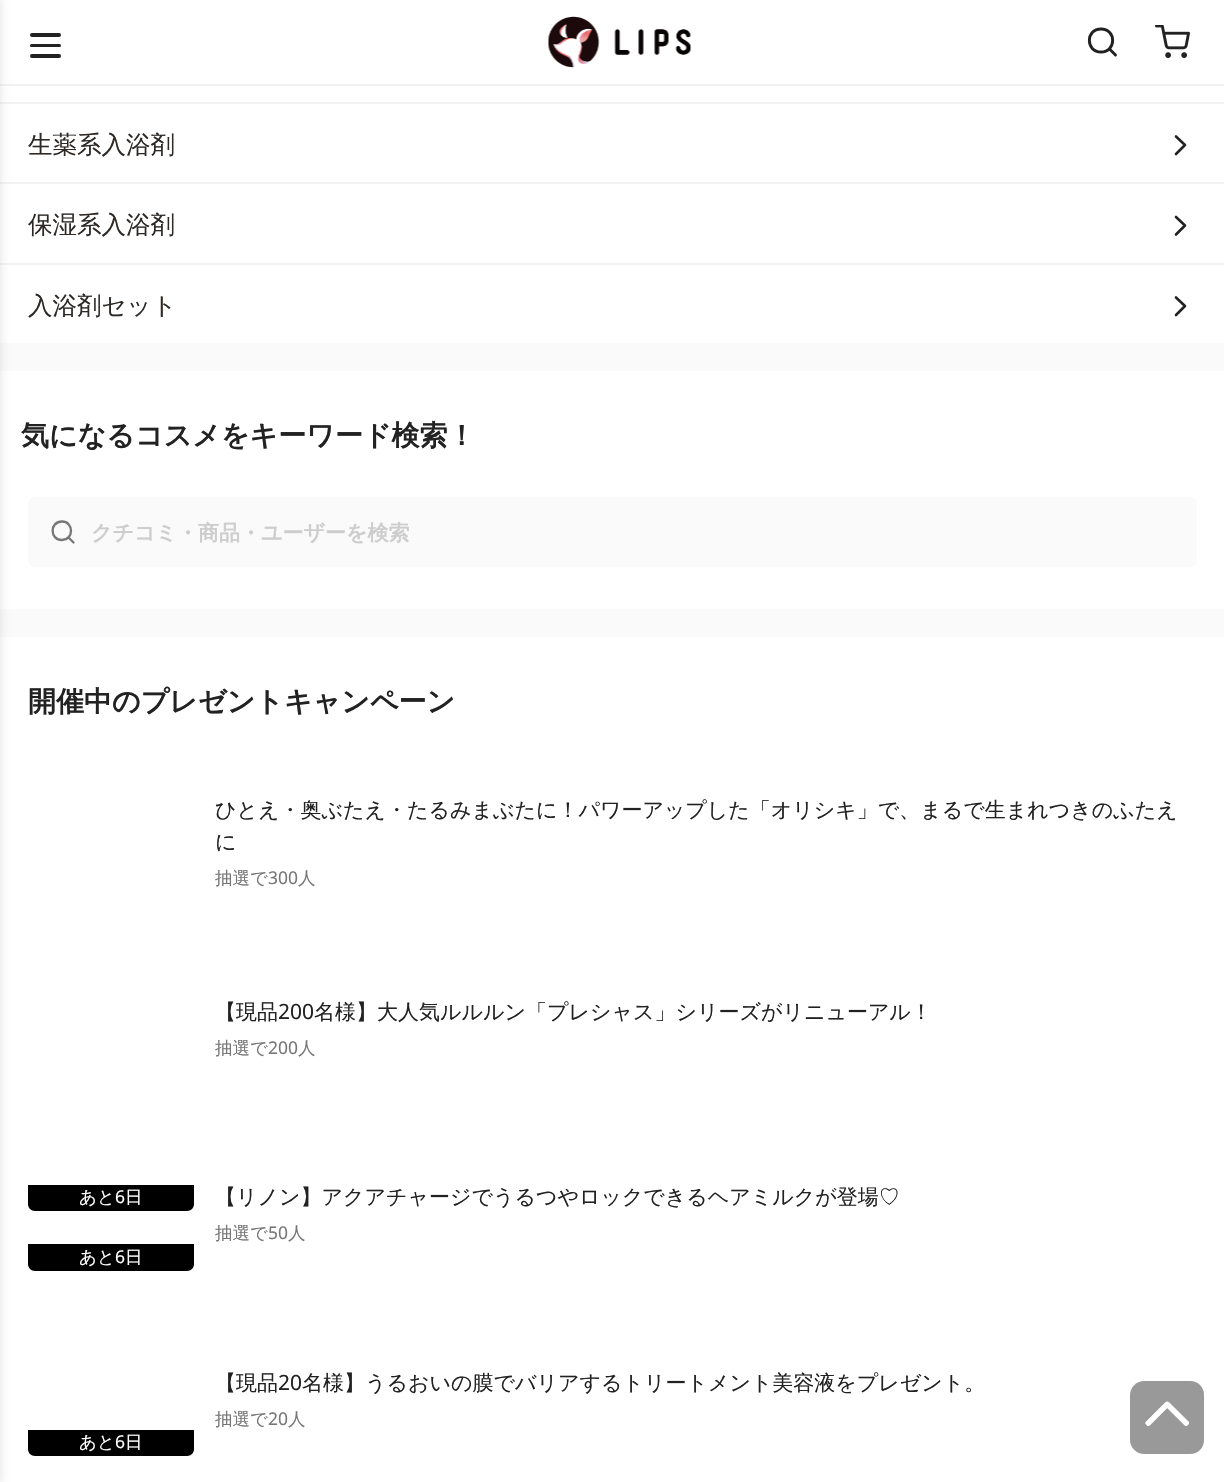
void draw(SkCanvas* canvas) {
	SkPaint fill;
	fill.setAntiAlias(true);
	auto makeFont = [&](const char* family, int weight, float size, bool italic = false) {
		SkFontStyle style(weight, SkFontStyle::kNormal_Width,
			italic ? SkFontStyle::kItalic_Slant : SkFontStyle::kUpright_Slant);
		SkFont result(fontMgr->matchFamilyStyle(family, style), size);
		result.setSubpixel(true);
		return result;
	};
	auto text = [&](const char* s, float x, float y, const SkFont& font) {
		canvas->drawString(s, x, y, font, fill);
	};
	auto box = [&](float l, float t, float r, float b) {
		canvas->drawRect(SkRect::MakeLTRB(l, t, r, b), fill);
	};
	auto roundBox = [&](float l, float t, float r, float b, float radius) {
		canvas->drawRoundRect(SkRect::MakeLTRB(l, t, r, b), radius, radius, fill);
	};
	auto picture = [&](const char* path, float l, float t, float r, float b) {
		auto image = SkImages::DeferredFromEncodedData(SkData::MakeFromFileName(path));
		canvas->drawImageRect(image, SkRect::MakeLTRB(l, t, r, b), SkSamplingOptions());
	};
	canvas->clear(0xFFFAFAFA);
	fill.setColor(0xFFFFFFFF);
	box(0, 0, 1224, 84);
	fill.setColor(0xFFF2F2F2);
	box(0, 84, 1224, 86);
	fill.setColor(0xFF222222);
	roundBox(30, 33, 61, 37, 2);
	roundBox(30, 44, 61, 47, 1.5f);
	roundBox(30, 54, 61, 58, 2);
	picture("image0.png", 547, 16, 692, 68);
	fill.setStyle(SkPaint::kStroke_Style);
	fill.setStrokeWidth(2.9f);
	fill.setStrokeJoin(SkPaint::kRound_Join);
	fill.setColor(0xFF212121);
	canvas->drawPath(SkPathBuilder().moveTo(1101, 52).cubicTo(1116.5f, 52, 1116.5f, 29, 1101, 29).cubicTo(1085.5f, 29, 1085.5f, 52, 1101, 52).close().detach(), fill);
	fill.setStrokeCap(SkPaint::kRound_Cap);
	canvas->drawPath(SkPathBuilder().moveTo(1115.5f, 55).lineTo(1109.5f, 49).detach(), fill);
	picture("image1.png", 1155, 25, 1190, 58);
	fill.setStyle(SkPaint::kFill_Style);
	fill.setColor(0xFFFFFFFF);
	box(0, 86, 1224, 343);
	fill.setColor(0xFFF2F2F2);
	box(0, 102, 1224, 104);
	box(0, 182, 1224, 184);
	box(0, 263, 1224, 265);
	fill.setColor(0xFFFFFFFF);
	box(0, 371, 1224, 609);
	box(0, 637, 1224, 1482);
	fill.setColor(0x14000000);
	fill.setMaskFilter(SkMaskFilter::MakeBlur(kNormal_SkBlurStyle, 3.5f));
	canvas->drawRect(SkRect::MakeLTRB(-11, -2, 2, 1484), fill);
	fill.setMaskFilter(nullptr);
	fill.setStyle(SkPaint::kStroke_Style);
	fill.setStrokeWidth(2.6f);
	fill.setColor(0xFF222222);
	canvas->drawPath(SkPathBuilder().moveTo(1176, 136.5f).lineTo(1185, 145).lineTo(1176, 154).detach(), fill);
	canvas->drawPath(SkPathBuilder().moveTo(1176, 217).lineTo(1185, 225.5f).lineTo(1176, 234.5f).detach(), fill);
	canvas->drawPath(SkPathBuilder().moveTo(1176, 297.5f).lineTo(1185, 306).lineTo(1176, 315).detach(), fill);
	fill.setStyle(SkPaint::kFill_Style);
	fill.setColor(0xFFFAFAFA);
	roundBox(28, 497, 1197, 567, 7);
	fill.setStyle(SkPaint::kStroke_Style);
	fill.setStrokeWidth(2.3f);
	fill.setStrokeCap(SkPaint::kButt_Cap);
	fill.setColor(0xFF777777);
	canvas->drawPath(SkPathBuilder().moveTo(62, 540).cubicTo(74, 540, 74, 521.5f, 62, 521.5f).cubicTo(49.5f, 521.5f, 49.5f, 540, 62, 540).close().detach(), fill);
	fill.setStrokeCap(SkPaint::kRound_Cap);
	canvas->drawPath(SkPathBuilder().moveTo(73.5f, 542.5f).lineTo(68.5f, 537.5f).detach(), fill);
	fill.setStyle(SkPaint::kFill_Style);
	fill.setColor(0xFF000000);
	canvas->drawPath(SkPathBuilder().moveTo(28, 1185).lineTo(194, 1185).lineTo(194, 1204).cubicTo(194, 1208, 191, 1211, 187, 1211).lineTo(35, 1211).cubicTo(31, 1211, 28, 1208, 28, 1204).close().detach(), fill);
	canvas->drawPath(SkPathBuilder().moveTo(28, 1244).lineTo(194, 1244).lineTo(194, 1264).cubicTo(194, 1268, 191, 1271, 187, 1271).lineTo(35, 1271).cubicTo(31, 1271, 28, 1268, 28, 1264).close().detach(), fill);
	canvas->drawPath(SkPathBuilder().moveTo(28, 1430).lineTo(194, 1430).lineTo(194, 1449).cubicTo(194, 1453, 191, 1456, 187, 1456).lineTo(35, 1456).cubicTo(31, 1456, 28, 1453, 28, 1449).close().detach(), fill);
	fill.setColor(0xFF999999);
	canvas->drawPath(SkPathBuilder().moveTo(1204, 1395).lineTo(1204, 1440).cubicTo(1204, 1448, 1198, 1454, 1190, 1454).lineTo(1144, 1454).cubicTo(1137, 1454, 1130, 1448, 1130, 1440).lineTo(1130, 1395).cubicTo(1130, 1387, 1137, 1381, 1144, 1381).lineTo(1190, 1381).cubicTo(1198, 1381, 1204, 1387, 1204, 1395).close().detach(), fill);
	picture("image2.png", 1145, 1401, 1189, 1426);
	auto font1 = makeFont("WenQuanYi Zen Hei", 500, 24.5f);
	fill.setColor(0xFF2D2926);
	text("生薬系入浴剤", 28, 153, font1);
	text("保湿系入浴剤", 28, 233, font1);
	text("入浴剤セット", 28, 314, font1);
	auto font2 = makeFont("WenQuanYi Zen Hei", 700, 28);
	fill.setColor(0xFF222222);
	text("気になるコスメをキーワード検索！", 21, 445, font2);
	auto font3 = makeFont("WenQuanYi Zen Hei", 700, 21);
	fill.setColor(0xFFCDCDCD);
	text("クチコミ・商品・ユーザーを検索", 91, 540, font3);
	fill.setColor(0xFF222222);
	text("開催中のプレゼントキャンペーン", 28, 711, font2);
	auto font4 = makeFont("WenQuanYi Zen Hei", 500, 21);
	text("ひとえ・奥ぶたえ・たるみまぶたに！パワーアップした「オリシキ」で、まるで生まれつきのふたえ", 215, 817, font4);
	text("に", 215, 849, font4);
	auto font5 = makeFont("WenQuanYi Zen Hei", 500, 17.5f);
	fill.setColor(0xFF777777);
	text("抽選で", 215, 884, font5);
	auto font6 = makeFont("Noto Sans", 400, 17.5f);
	text("300", 268, 884, font6);
	text("人", 298, 884, font5);
	fill.setColor(0xFFFFFFFF);
	text("あと", 79, 1203, font5);
	text("6", 115, 1203, font6);
	text("日", 125, 1203, font5);
	fill.setColor(0xFF222222);
	text("【現品", 215, 1019, font4);
	auto font7 = makeFont("Noto Sans", 400, 21);
	text("200", 278, 1019, font7);
	text("名様】大人気ルルルン「プレシャス」シリーズがリニューアル！", 314, 1019, font4);
	fill.setColor(0xFF777777);
	text("抽選で", 215, 1054, font5);
	text("200", 268, 1054, font6);
	text("人", 298, 1054, font5);
	fill.setColor(0xFFFFFFFF);
	text("あと", 79, 1263, font5);
	text("6", 115, 1263, font6);
	text("日", 125, 1263, font5);
	fill.setColor(0xFF222222);
	text("【リノン】アクアチャージでうるつやロックできるヘアミルクが登場♡", 215, 1204, font4);
	fill.setColor(0xFF777777);
	text("抽選で", 215, 1239, font5);
	text("50", 268, 1239, font6);
	text("人", 288, 1239, font5);
	fill.setColor(0xFFFFFFFF);
	text("あと", 79, 1448, font5);
	text("6", 115, 1448, font6);
	text("日", 125, 1448, font5);
	fill.setColor(0xFF222222);
	text("【現品", 215, 1390, font4);
	text("20", 278, 1390, font7);
	text("名様】うるおいの膜でバリアするトリートメント美容液をプレゼント。", 302, 1390, font4);
	fill.setColor(0xFF777777);
	text("抽選で", 215, 1425, font5);
	text("20", 268, 1425, font6);
	text("人", 288, 1425, font5);
}
